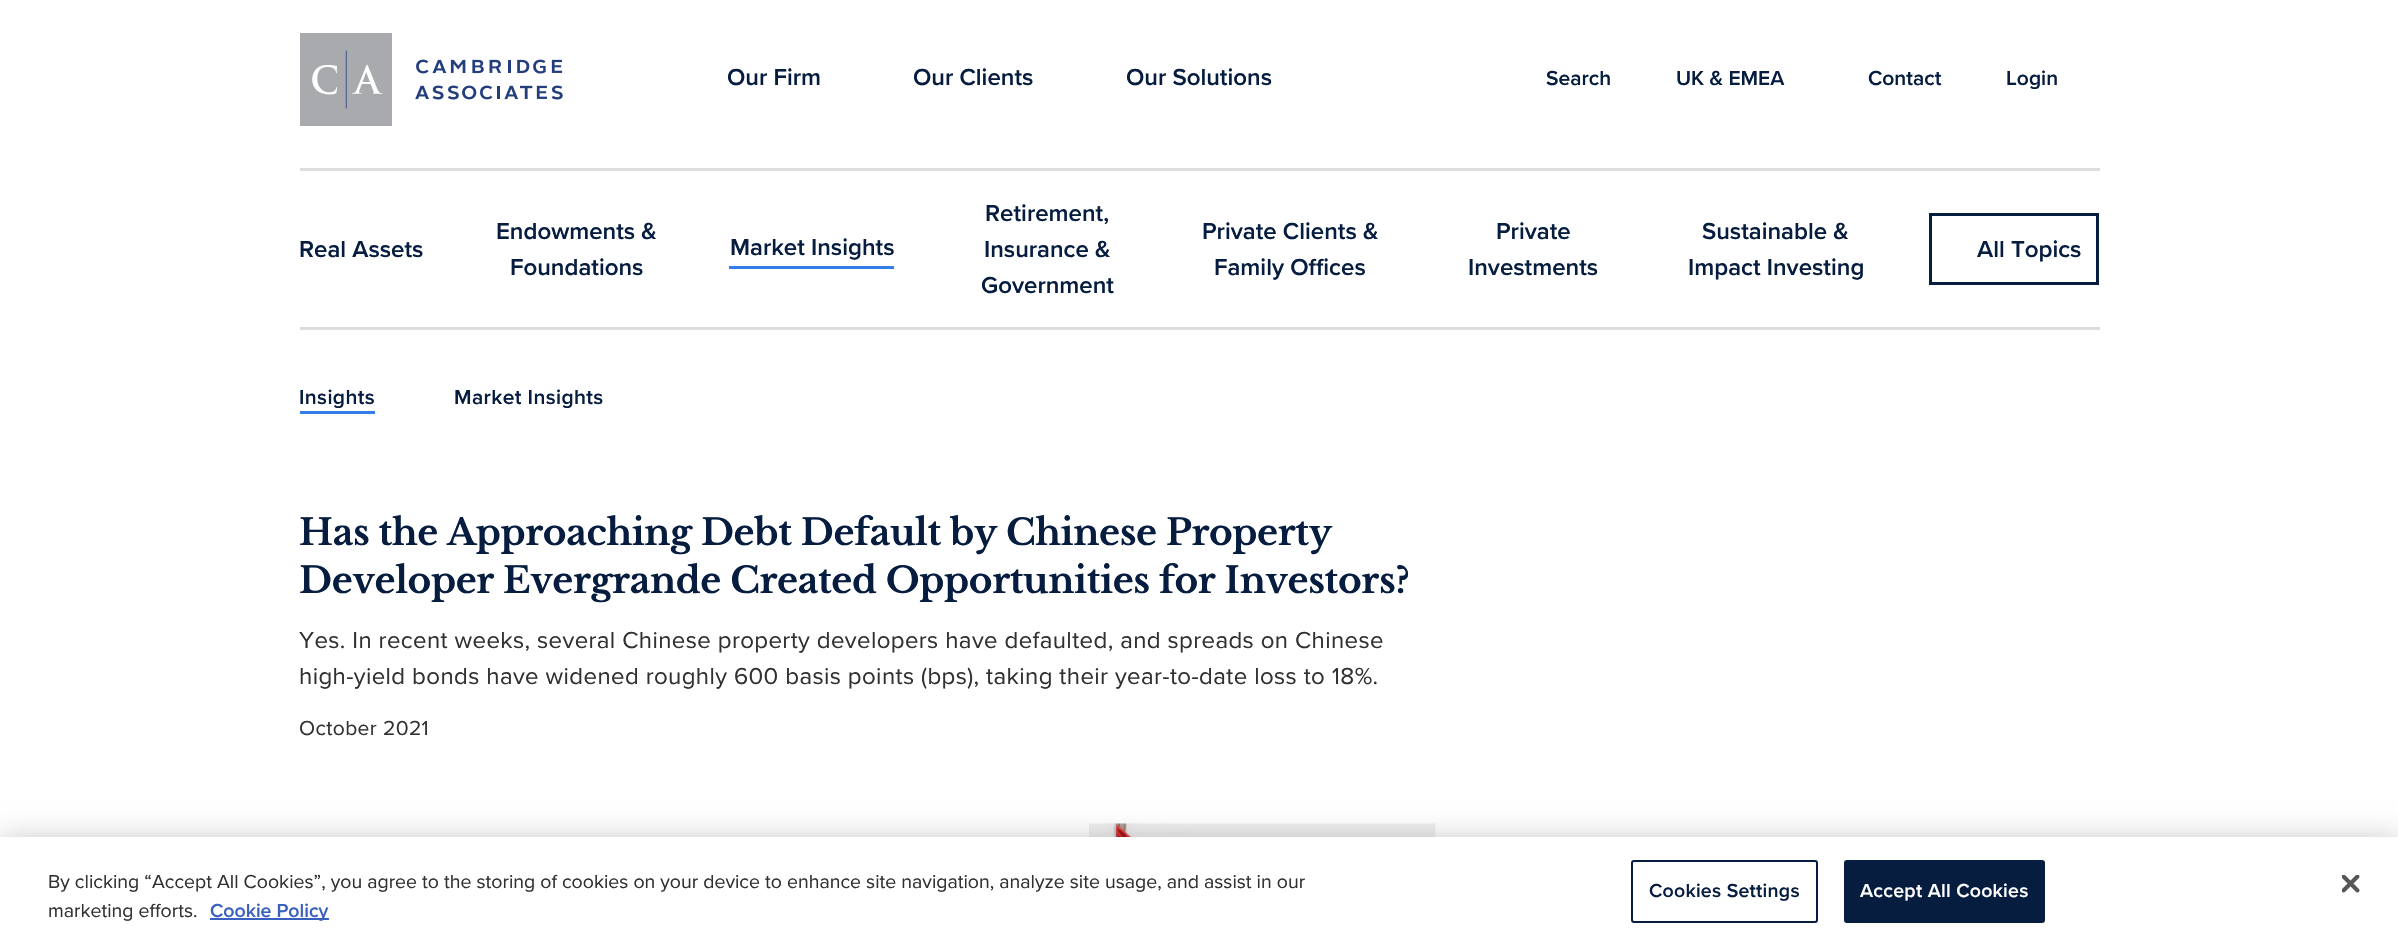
void draw(SkCanvas* canvas) {
	SkPaint fill;
	fill.setAntiAlias(true);
	auto makeFont = [&](const char* family, int weight, float size, bool italic = false) {
		SkFontStyle style(weight, SkFontStyle::kNormal_Width,
			italic ? SkFontStyle::kItalic_Slant : SkFontStyle::kUpright_Slant);
		SkFont result(fontMgr->matchFamilyStyle(family, style), size);
		result.setSubpixel(true);
		return result;
	};
	auto text = [&](const char* s, float x, float y, const SkFont& font) {
		canvas->drawString(s, x, y, font, fill);
	};
	auto spacedText = [&](const char* s, float x, float y, const SkFont& font, const SkPaint& ink, float letter, float word) {
		std::vector<SkGlyphID> glyphs(font.countText(s, strlen(s), SkTextEncoding::kUTF8));
		std::vector<float> xs(glyphs.size());
		font.textToGlyphs(s, strlen(s), SkTextEncoding::kUTF8, glyphs);
		font.getXPos(glyphs, xs, x);
		float extra = 0;
		for (size_t i = 0; i < glyphs.size(); i++) {
			xs[i] += extra;
			extra += letter + word * (glyphs[i] == font.unicharToGlyph(' '));
		}
		canvas->drawTextBlob(SkTextBlob::MakeFromPosHGlyphs(glyphs, xs, y, font), 0, 0, ink);
	};
	auto box = [&](float l, float t, float r, float b) {
		canvas->drawRect(SkRect::MakeLTRB(l, t, r, b), fill);
	};
	auto picture = [&](const char* path, float l, float t, float r, float b) {
		auto image = SkImages::DeferredFromEncodedData(SkData::MakeFromFileName(path));
		canvas->drawImageRect(image, SkRect::MakeLTRB(l, t, r, b), SkSamplingOptions());
	};
	canvas->clear(0xFFFFFFFF);
	picture("image0.png", 300, 33, 563, 126);
	fill.setColor(0xFFDCDDDE);
	box(300, 168, 2100, 171);
	box(300, 327, 2100, 330);
	fill.setColor(0xFF347BEC);
	box(729, 266, 894, 269);
	fill.setStyle(SkPaint::kStroke_Style);
	fill.setStrokeWidth(3);
	fill.setColor(0xFF061D40);
	canvas->drawRect(SkRect::MakeLTRB(1930.5f, 214.5f, 2097.5f, 283.5f), fill);
	fill.setStyle(SkPaint::kFill_Style);
	fill.setColor(0xFF347BEC);
	box(300, 411, 375, 414);
	picture("image1.png", 1089, 823, 1436, 837);
	fill.setColor(0x33000000);
	fill.setMaskFilter(SkMaskFilter::MakeBlur(kNormal_SkBlurStyle, 13.5f));
	canvas->drawRect(SkRect::MakeLTRB(0, 837, 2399, 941), fill);
	fill.setMaskFilter(nullptr);
	fill.setColor(0xFFFFFFFF);
	box(0, 837, 2398, 940);
	fill.setColor(0xFF3860BE);
	box(210, 918, 329, 920);
	fill.setStyle(SkPaint::kStroke_Style);
	fill.setStrokeWidth(2);
	fill.setColor(0xFF061D40);
	canvas->drawRoundRect(SkRect::MakeLTRB(1632, 861, 1817, 922), 2, 2, fill);
	fill.setStyle(SkPaint::kFill_Style);
	canvas->drawRoundRect(SkRect::MakeLTRB(1845, 861, 2044, 922), 2, 2, fill);
	fill.setStyle(SkPaint::kStroke_Style);
	canvas->drawRoundRect(SkRect::MakeLTRB(1845, 861, 2044, 922), 2, 2, fill);
	picture("image2.png", 2342, 875, 2360, 893);
	auto font1 = makeFont("Proxima Nova", 600, 24);
	fill.setStyle(SkPaint::kFill_Style);
	text("Our Firm", 727, 85, font1);
	text("Our Clients", 913, 85, font1);
	text("Our Solutions", 1126, 85, font1);
	auto font2 = makeFont("Proxima Nova", 600, 21);
	text("Search", 1546, 85, font2);
	text("UK & EMEA", 1676, 85, font2);
	text("Contact", 1868, 85, font2);
	text("Login", 2006, 85, font2);
	text("Real Assets", 299, 257, font1);
	text("Endowments &", 496, 239, font1);
	text("Foundations", 510, 275, font1);
	text("Market Insights", 730, 255, font1);
	text("Retirement,", 985, 221, font1);
	text("Insurance &", 984, 257, font1);
	text("Government", 981, 293, font1);
	text("Private Clients &", 1202, 239, font1);
	text("Family Offices", 1214, 275, font1);
	text("Private", 1496, 239, font1);
	text("Investments", 1468, 275, font1);
	text("Sustainable &", 1702, 239, font1);
	text("Impact Investing", 1688, 275, font1);
	text("All Topics", 1977, 257, font1);
	spacedText("Insights", 299, 404, font2, fill, 0.38f, 0);
	spacedText("Market Insights", 454, 404, font2, fill, 0.38f, 0);
	auto font3 = makeFont("Libre Baskerville", 700, 36);
	spacedText("Has the Approaching Debt Default by Chinese Property", 299, 545, font3, fill, -0.38f, 0);
	spacedText("Developer Evergrande Created Opportunities for Investors?", 299, 593, font3, fill, -0.38f, 0);
	auto font4 = makeFont("Proxima Nova", 400, 24);
	fill.setColor(0xFF2F3133);
	spacedText("Yes. In recent weeks, several Chinese property developers have defaulted, and spreads on Chinese", 299, 648, font4, fill, 0.38f, 0);
	spacedText("high-yield bonds have widened roughly 600 basis points (bps), taking their year-to-date loss to 18%.", 299, 684, font4, fill, 0.38f, 0);
	auto font5 = makeFont("Proxima Nova", 400, 21);
	spacedText("October 2021", 299, 735, font5, fill, 0.38f, 0);
	auto font6 = makeFont("Proxima Nova", 400, 19.5f);
	text("By clicking “Accept All Cookies”, you agree to the storing of cookies on your device to enhance site navigation, analyze site usage, and assist in our", 48, 888, font6);
	text("marketing efforts.", 48, 917, font6);
	auto font7 = makeFont("Proxima Nova", 600, 19.5f);
	fill.setColor(0xFF3860BE);
	text("Cookie Policy", 210, 917, font7);
	fill.setColor(0xFF061D40);
	spacedText("Cookies Settings", 1649, 897, font7, fill, 0.25f, 0);
	fill.setColor(0xFFFFFFFF);
	spacedText("Accept All Cookies", 1860, 897, font7, fill, 0.25f, 0);
}
